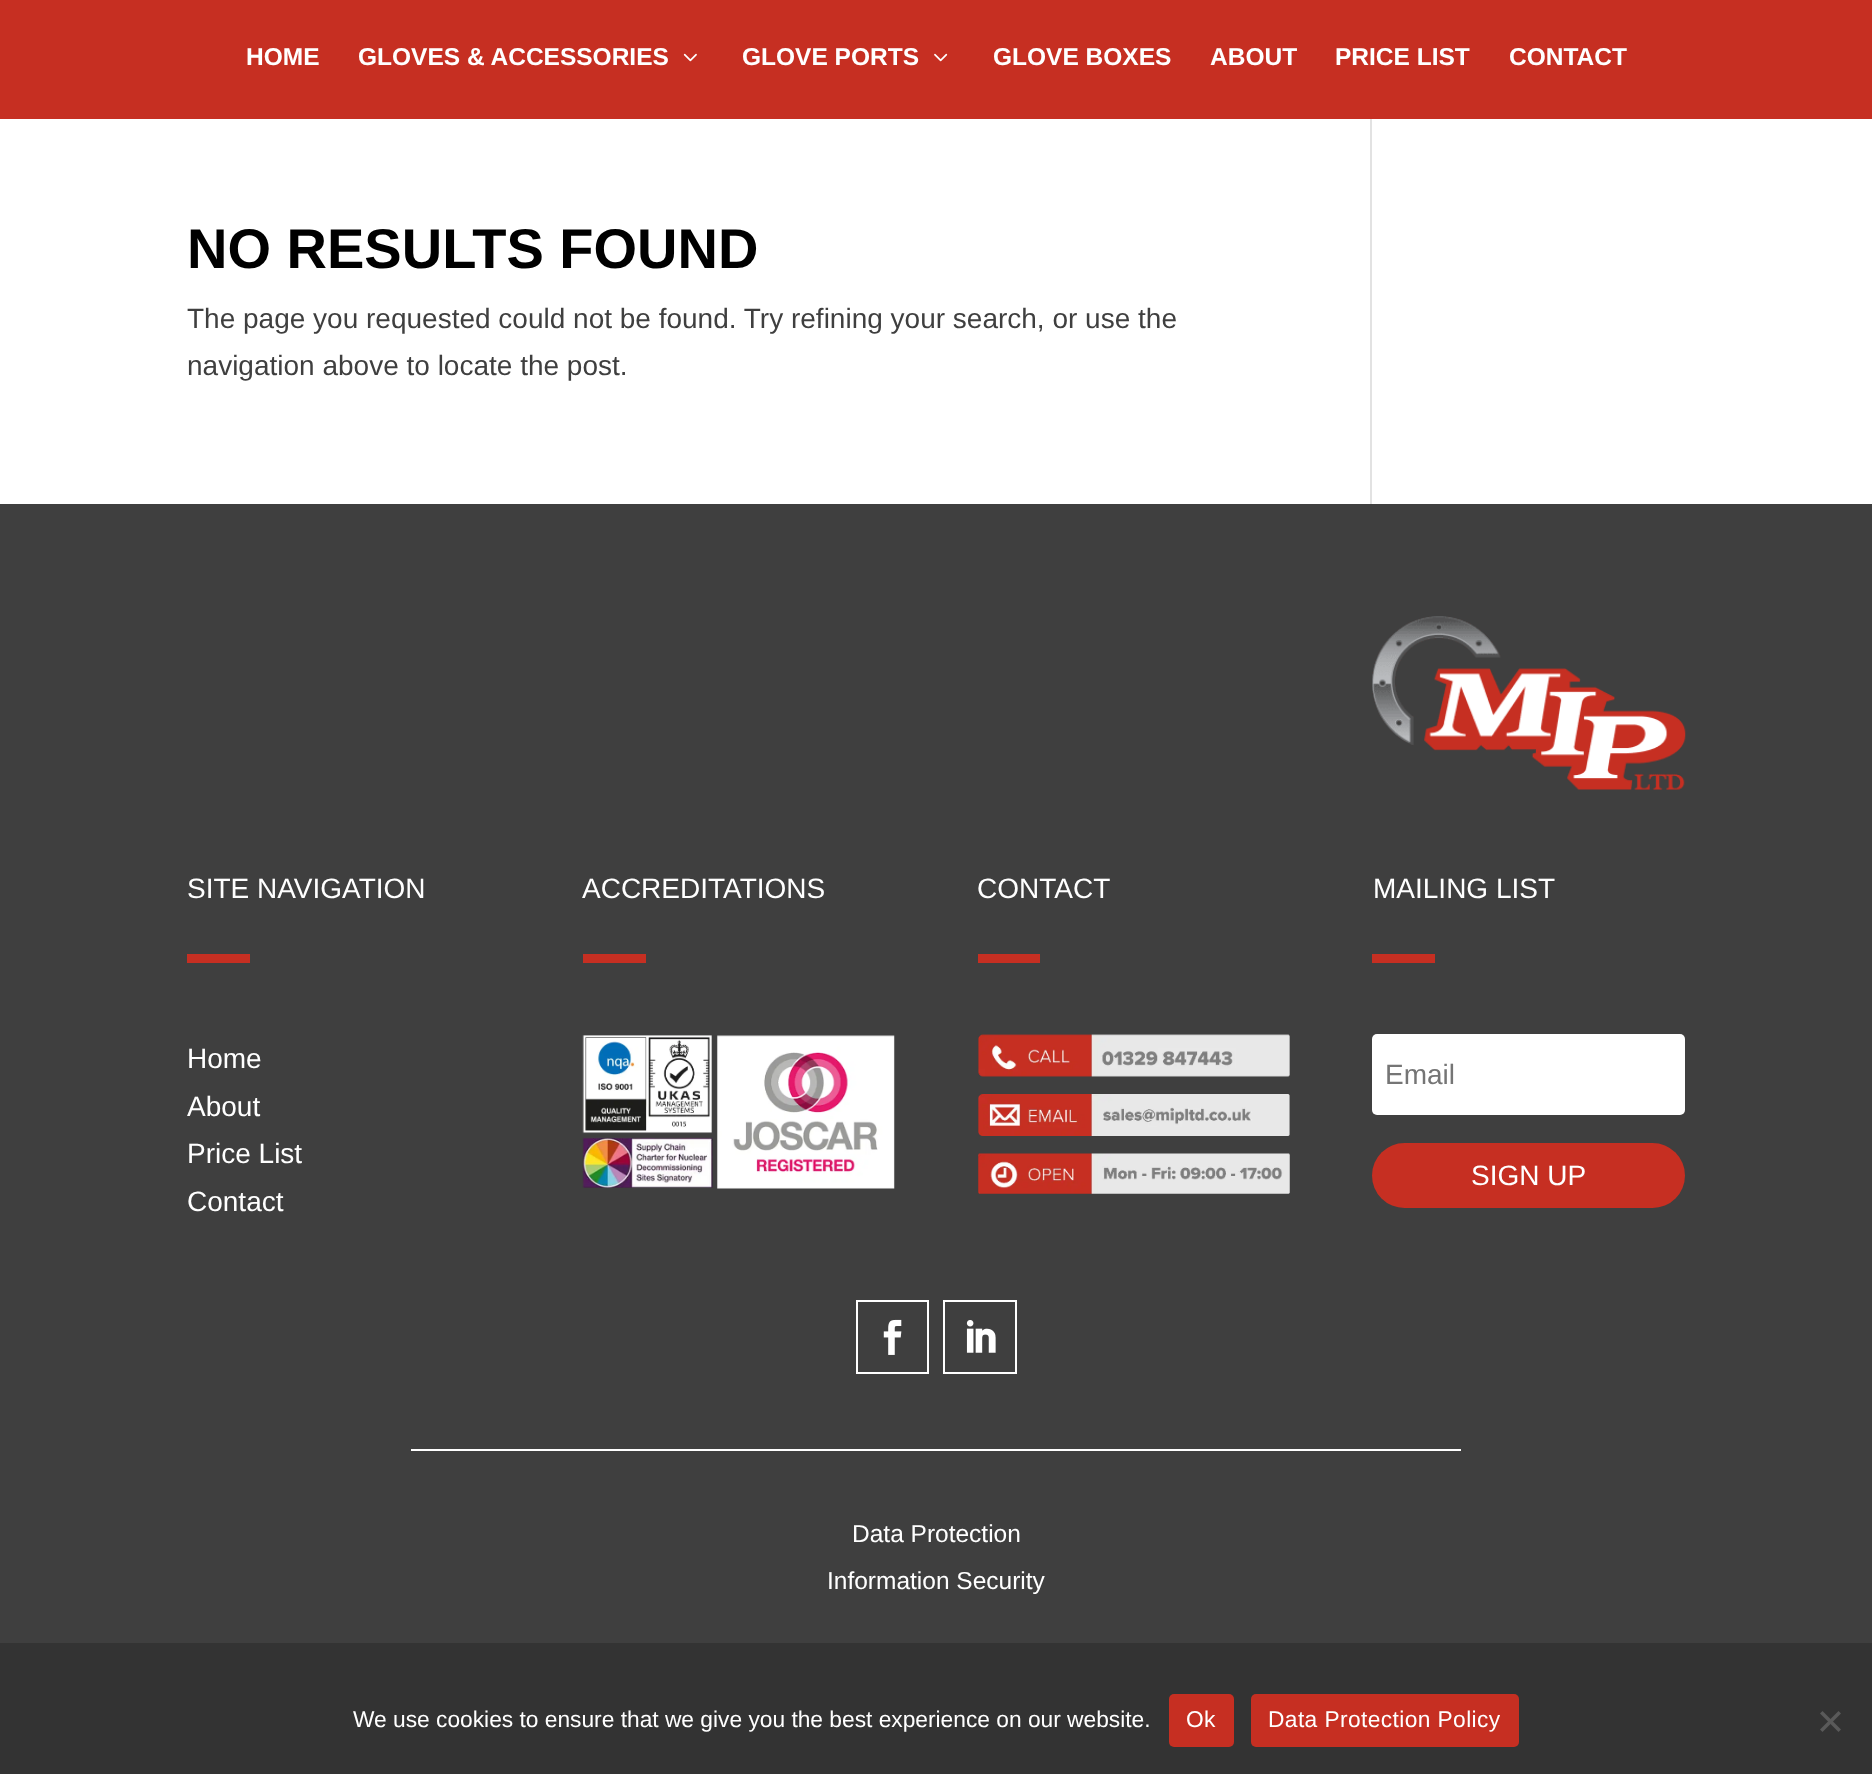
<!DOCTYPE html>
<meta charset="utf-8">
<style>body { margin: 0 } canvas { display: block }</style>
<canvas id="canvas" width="1872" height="1774"></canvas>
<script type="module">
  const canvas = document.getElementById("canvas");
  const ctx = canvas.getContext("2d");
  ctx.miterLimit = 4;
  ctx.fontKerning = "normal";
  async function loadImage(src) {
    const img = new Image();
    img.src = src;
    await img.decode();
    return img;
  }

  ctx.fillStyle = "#ffffff";
  ctx.fillRect(0, 0, 1872, 1774);
  ctx.fillStyle = "#c62f22";
  ctx.fillRect(0, 0, 1872, 119);
  ctx.font = "bold 24.5px Liberation Sans";
  ctx.fillStyle = "#ffffff";
  ctx.fillText("HOME", 246, 65);
  ctx.fillText("GLOVES & ACCESSORIES", 358, 65);
  ctx.drawImage(await loadImage("img1.png"), 683, 53, 14, 9);
  ctx.fillText("GLOVE PORTS", 742, 65);
  ctx.drawImage(await loadImage("img2.png"), 934, 53, 14, 9);
  ctx.fillText("GLOVE BOXES", 993, 65);
  ctx.fillText("ABOUT", 1210, 65);
  ctx.fillText("PRICE LIST", 1335, 65);
  ctx.fillText("CONTACT", 1509, 65);
  ctx.font = "bold 56px Liberation Sans";
  ctx.fillStyle = "#000000";
  ctx.fillText("NO RESULTS FOUND", 187, 268);
  ctx.font = "28px Liberation Sans";
  ctx.fillStyle = "#3f3f3f";
  ctx.fillText("The page you requested could not be found. Try refining your search, or use the", 187, 328);
  ctx.fillText("navigation above to locate the post.", 187, 375);
  ctx.fillStyle = "#e2e2e2";
  ctx.fillRect(1370, 119, 2, 385);
  ctx.fillStyle = "#3f3f3f";
  ctx.fillRect(0, 504, 1872, 1139);
  ctx.drawImage(await loadImage("img3.png"), 1372, 616, 314, 174);
  ctx.fillStyle = "#ffffff";
  ctx.fillText("SITE NAVIGATION", 187, 898);
  ctx.fillStyle = "#c62f22";
  ctx.fillRect(187, 954, 63, 9);
  ctx.fillStyle = "#ffffff";
  ctx.fillText("Home", 187, 1068);
  ctx.fillText("About", 187, 1116);
  ctx.fillText("Price List", 187, 1163);
  ctx.fillText("Contact", 187, 1211);
  ctx.fillText("ACCREDITATIONS", 582, 898);
  ctx.fillStyle = "#c62f22";
  ctx.fillRect(583, 954, 63, 9);
  ctx.drawImage(await loadImage("img4.png"), 582, 1035, 313, 154);
  ctx.fillStyle = "#ffffff";
  ctx.fillText("CONTACT", 977, 898);
  ctx.fillStyle = "#c62f22";
  ctx.fillRect(978, 954, 62, 9);
  ctx.drawImage(await loadImage("img5.png"), 978, 1034, 312, 43);
  ctx.drawImage(await loadImage("img6.png"), 978, 1094, 312, 42);
  ctx.drawImage(await loadImage("img7.png"), 978, 1153, 312, 41);
  ctx.fillStyle = "#ffffff";
  ctx.fillText("MAILING LIST", 1373, 898);
  ctx.fillStyle = "#c62f22";
  ctx.fillRect(1372, 954, 63, 9);
  ctx.fillStyle = "#ffffff";
  ctx.beginPath();
  ctx.roundRect(1372, 1034, 313, 81, 5);
  ctx.fill();
  ctx.fillStyle = "#757575";
  ctx.fillText("Email", 1385, 1084);
  ctx.fillStyle = "#c62f22";
  ctx.beginPath();
  ctx.roundRect(1372, 1143, 313, 65, 32.5);
  ctx.fill();
  ctx.fillStyle = "#ffffff";
  ctx.fillText("SIGN UP", 1471, 1185);
  ctx.strokeStyle = "#ffffff";
  ctx.lineWidth = 2;
  ctx.strokeRect(857, 1301, 71, 72);
  ctx.drawImage(await loadImage("img8.png"), 883, 1319, 19, 36);
  ctx.strokeRect(944, 1301, 72, 72);
  ctx.drawImage(await loadImage("img9.png"), 966, 1320, 30, 33);
  ctx.fillRect(411, 1449, 1050, 2);
  ctx.font = "24.5px Liberation Sans";
  ctx.fillText("Data Protection", 852, 1542);
  ctx.fillText("Information Security", 827, 1589);
  ctx.fillStyle = "#333333";
  ctx.fillRect(0, 1643, 1872, 131);
  ctx.font = "22.75px Liberation Sans";
  ctx.fillStyle = "#ffffff";
  ctx.fillText("We use cookies to ensure that we give you the best experience on our website.", 353, 1727);
  ctx.fillStyle = "#c62f22";
  ctx.beginPath();
  ctx.roundRect(1169, 1694, 65, 53, 5);
  ctx.fill();
  ctx.letterSpacing = "0.4px";
  ctx.fillStyle = "#ffffff";
  ctx.fillText("Ok", 1186, 1727);
  ctx.fillStyle = "#c62f22";
  ctx.beginPath();
  ctx.roundRect(1251, 1694, 268, 53, 5);
  ctx.fill();
  ctx.fillStyle = "#ffffff";
  ctx.fillText("Data Protection Policy", 1268, 1727);
  ctx.fillStyle = "#5a5a5a";
  ctx.beginPath();
  ctx.moveTo(1838.5, 1711);
  ctx.lineTo(1841, 1713.5);
  ctx.lineTo(1822.5, 1732);
  ctx.lineTo(1820, 1729.5);
  ctx.closePath();
  ctx.fill();
  ctx.beginPath();
  ctx.moveTo(1820, 1713.5);
  ctx.lineTo(1822.5, 1711);
  ctx.lineTo(1841, 1729.5);
  ctx.lineTo(1838.5, 1732);
  ctx.closePath();
  ctx.fill();
</script>
